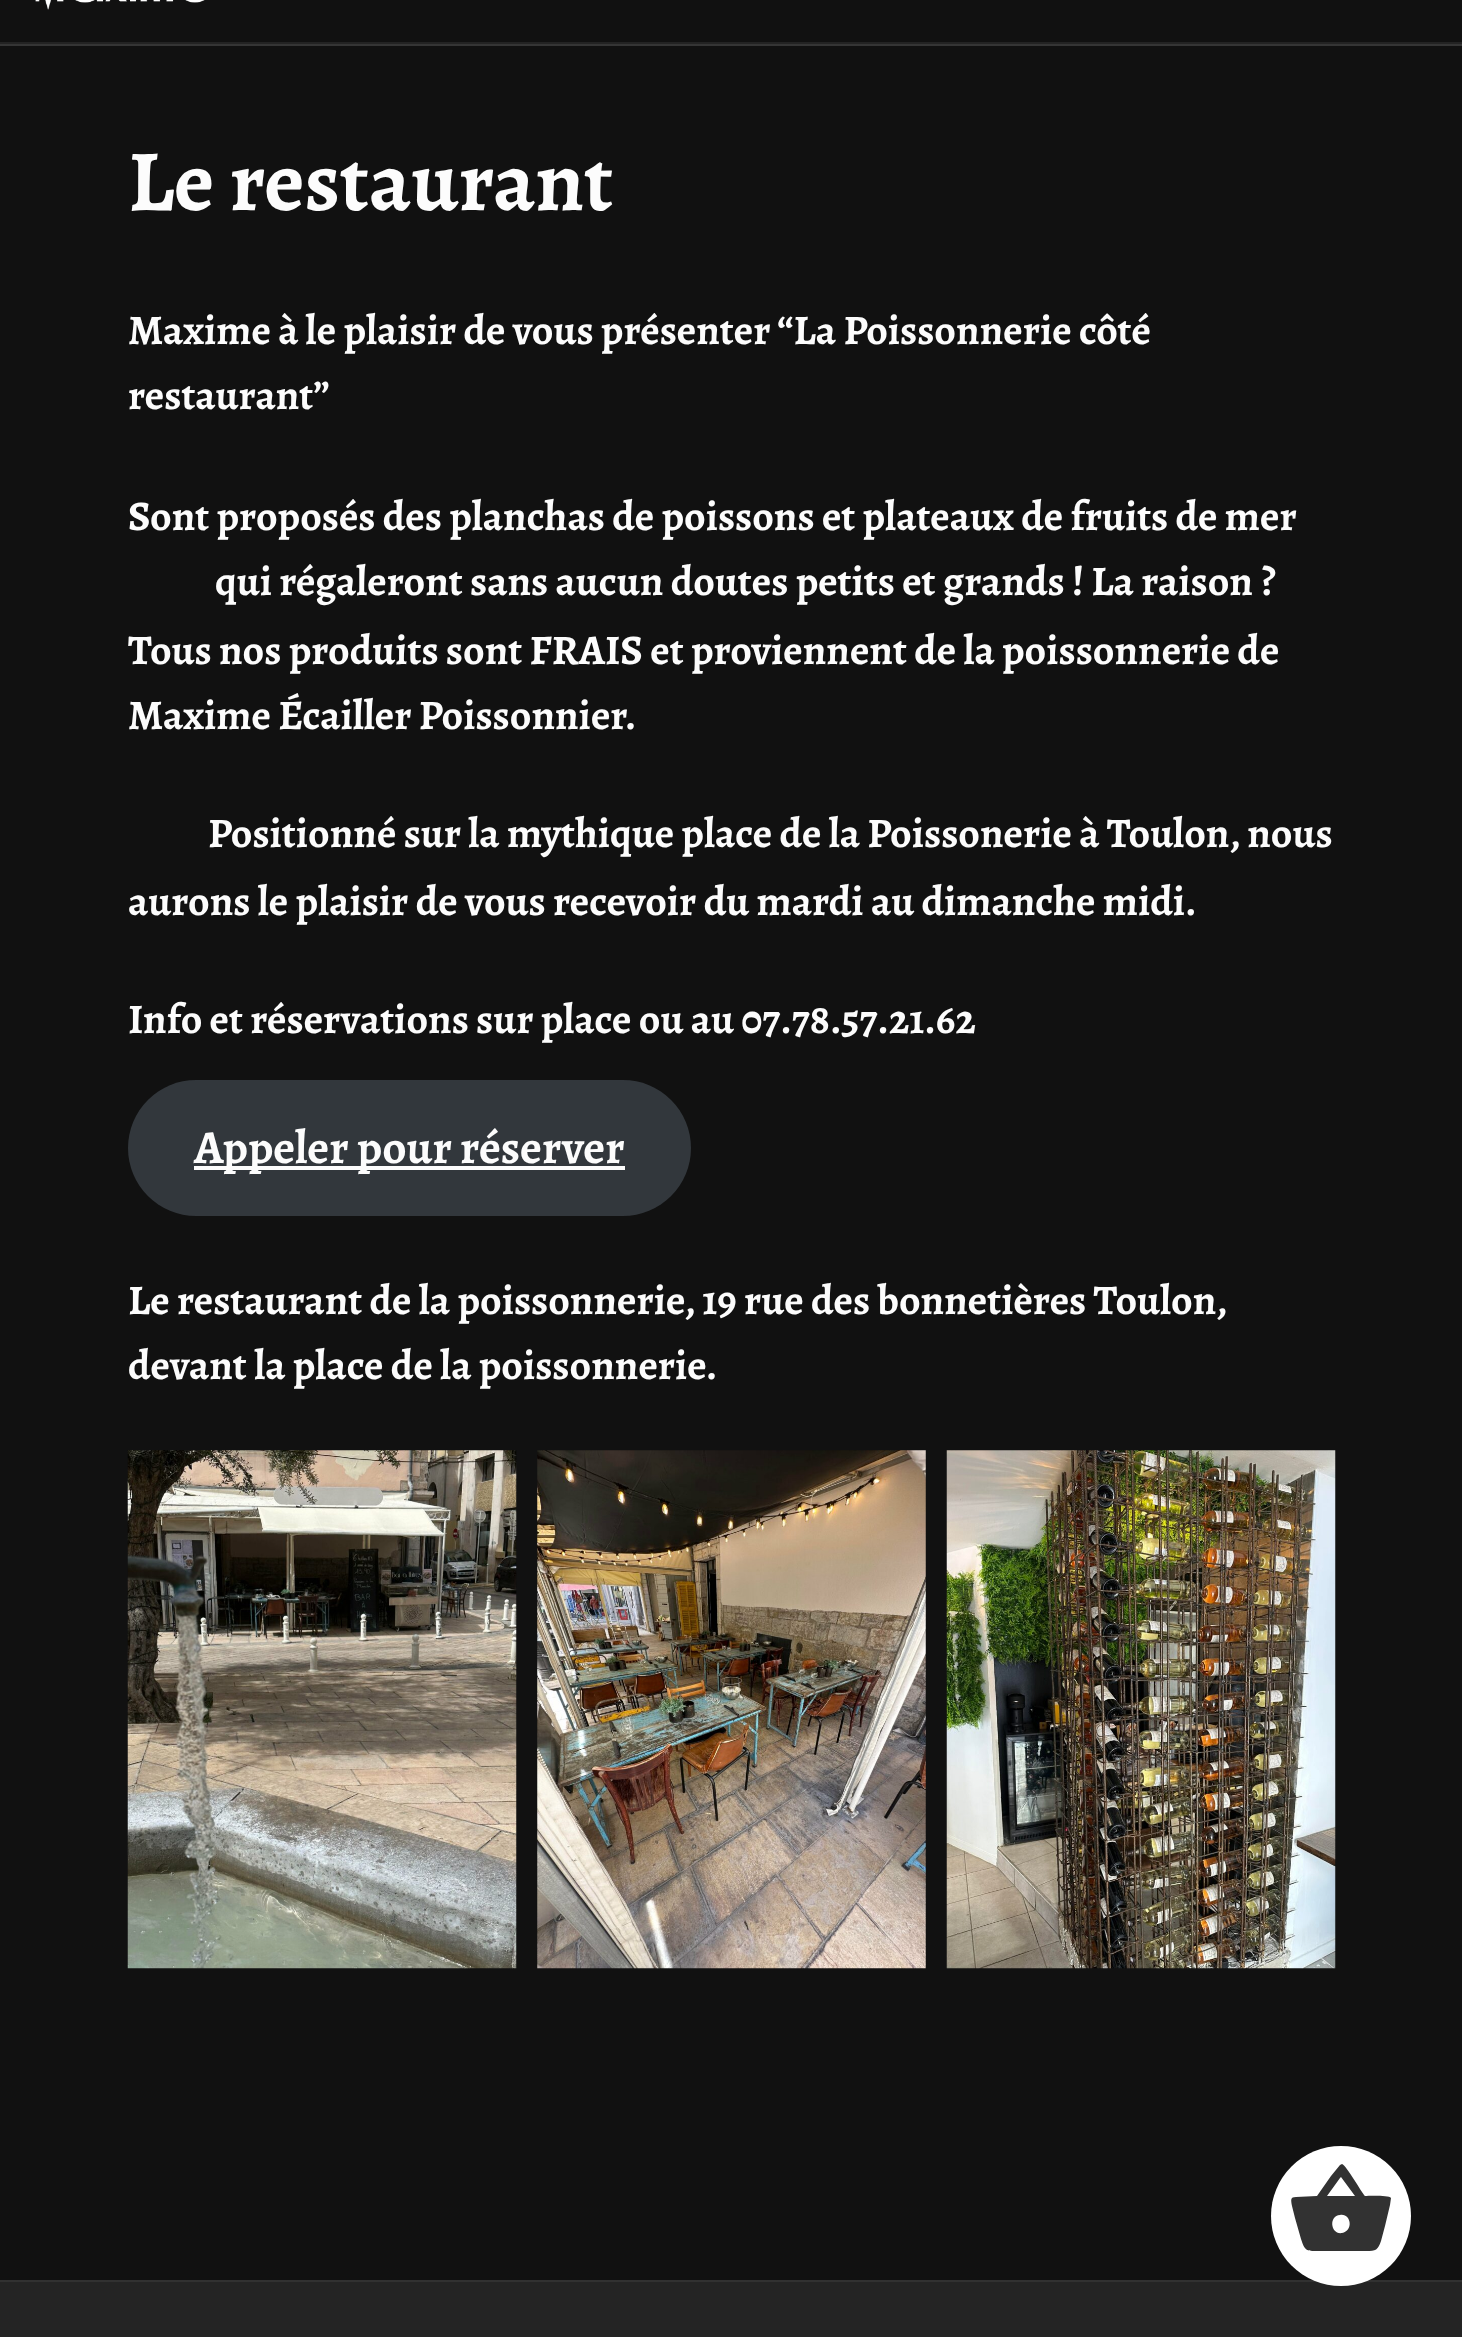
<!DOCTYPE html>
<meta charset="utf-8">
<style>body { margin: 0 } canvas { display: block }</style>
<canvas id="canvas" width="1462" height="2337"></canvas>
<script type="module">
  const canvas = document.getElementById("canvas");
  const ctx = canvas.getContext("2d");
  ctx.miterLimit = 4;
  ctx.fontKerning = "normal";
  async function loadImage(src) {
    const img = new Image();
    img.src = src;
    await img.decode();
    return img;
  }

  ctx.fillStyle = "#111111";
  ctx.fillRect(0, 0, 1462, 2337);
  ctx.fillStyle = "#353535";
  ctx.fillRect(0, 44, 1462, 2);
  ctx.drawImage(await loadImage("img1.png"), 35, 0, 170, 10);
  ctx.fillStyle = "#232323";
  ctx.fillRect(0, 42, 1462, 2);
  ctx.font = "bold 87px Alegreya";
  ctx.fillStyle = "#fcfcfc";
  ctx.fillText("Le restaurant", 128, 210);
  ctx.font = "bold 42px Alegreya";
  ctx.fillText("Maxime à le plaisir de vous présenter “La Poissonnerie côté", 128, 344);
  ctx.fillText("restaurant”", 128, 409);
  ctx.fillText("Sont proposés des planchas de poissons et plateaux de fruits de mer", 128, 530);
  ctx.fillText("qui régaleront sans aucun doutes petits et grands ! La raison ?", 215, 595);
  ctx.fillText("Tous nos produits sont FRAIS et proviennent de la poissonnerie de", 128, 664);
  ctx.fillText("Maxime Écailler Poissonnier.", 128, 729);
  ctx.fillText("Positionné sur la mythique place de la Poissonerie à Toulon, nous", 208, 847);
  ctx.fillText("aurons le plaisir de vous recevoir du mardi au dimanche midi.", 128, 915);
  ctx.fillText("Info et réservations sur place ou au 07.78.57.21.62", 128, 1033);
  ctx.fillStyle = "#32373c";
  ctx.beginPath();
  ctx.roundRect(128, 1080, 563, 136, 68);
  ctx.fill();
  ctx.fillStyle = "#fcfcfc";
  ctx.fillRect(194, 1166, 431, 4);
  ctx.font = "bold 47.25px Alegreya";
  ctx.fillText("Appeler pour réserver", 194, 1163);
  ctx.font = "bold 42px Alegreya";
  ctx.fillText("Le restaurant de la poissonnerie, 19 rue des bonnetières Toulon,", 128, 1314);
  ctx.fillText("devant la place de la poissonnerie.", 128, 1379);
  ctx.drawImage(await loadImage("img2.png"), 127, 1450, 390, 519);
  ctx.drawImage(await loadImage("img3.png"), 537, 1450, 389, 519);
  ctx.drawImage(await loadImage("img4.png"), 946, 1450, 390, 519);
  ctx.fillStyle = "#313131";
  ctx.fillRect(0, 2280, 1462, 2);
  ctx.fillStyle = "#242424";
  ctx.fillRect(0, 2282, 1462, 55);
  ctx.fillStyle = "#ffffff";
  ctx.beginPath();
  ctx.arc(1341, 2216, 70, 0, Math.PI * 2);
  ctx.fill();
  ctx.fillStyle = "#323232";
  ctx.beginPath();
  ctx.moveTo(1340, 2165);
  ctx.lineTo(1342, 2164);
  ctx.bezierCurveTo(1346, 2165, 1362, 2193, 1365, 2196);
  ctx.bezierCurveTo(1368, 2196, 1389, 2195, 1391, 2198);
  ctx.lineTo(1390, 2205);
  ctx.lineTo(1385, 2226);
  ctx.lineTo(1381, 2241);
  ctx.bezierCurveTo(1378, 2250, 1376, 2251, 1366, 2251);
  ctx.lineTo(1318, 2251);
  ctx.bezierCurveTo(1306, 2251, 1305, 2251, 1301, 2239);
  ctx.lineTo(1295, 2218);
  ctx.lineTo(1292, 2206);
  ctx.bezierCurveTo(1291, 2200, 1290, 2197, 1296, 2197);
  ctx.lineTo(1317, 2196);
  ctx.lineTo(1331, 2176);
  ctx.closePath();
  ctx.moveTo(1340, 2178);
  ctx.lineTo(1327, 2196);
  ctx.lineTo(1355, 2196);
  ctx.lineTo(1341, 2177);
  ctx.closePath();
  ctx.moveTo(1340, 2215);
  ctx.bezierCurveTo(1328, 2216, 1331, 2235, 1342, 2233);
  ctx.bezierCurveTo(1354, 2231, 1351, 2213, 1340, 2215);
  ctx.closePath();
  ctx.fill();
</script>
